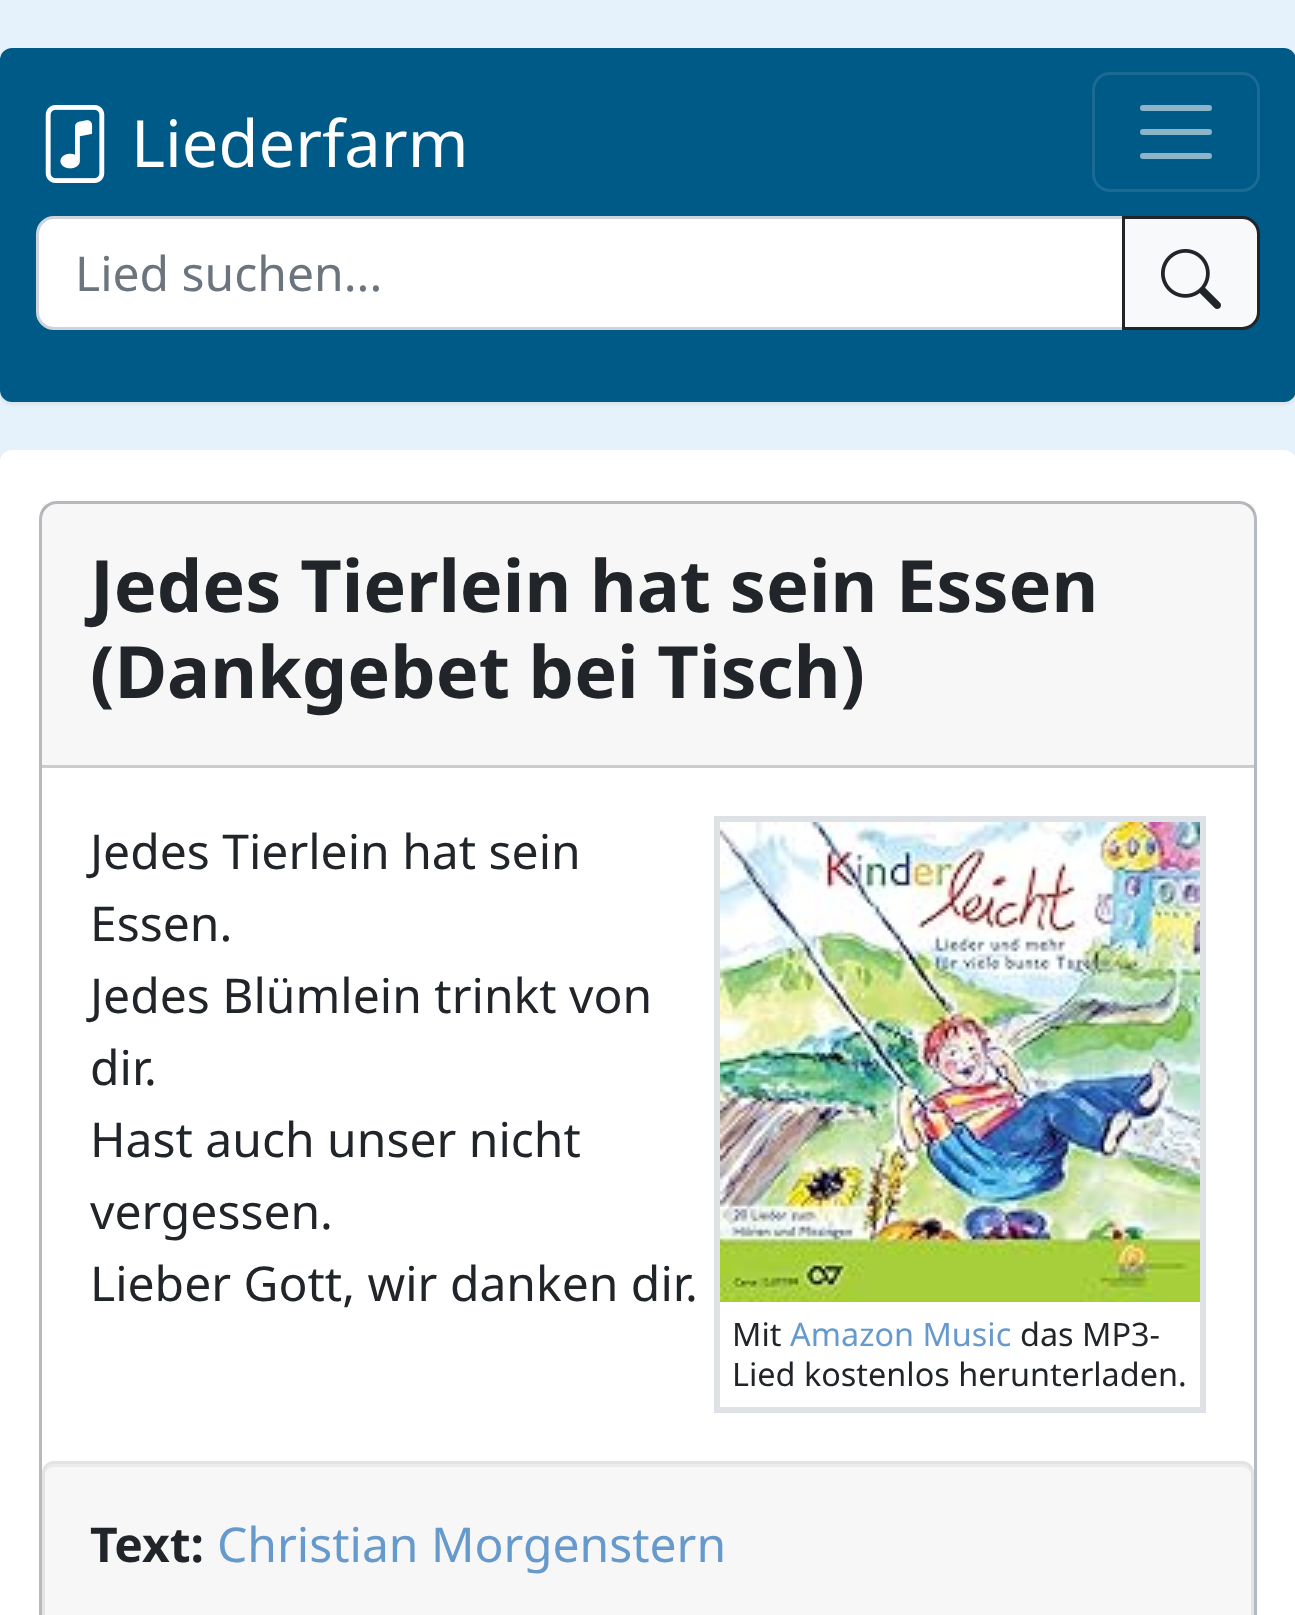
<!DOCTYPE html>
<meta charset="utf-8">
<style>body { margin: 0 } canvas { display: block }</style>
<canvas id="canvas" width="1295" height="1615"></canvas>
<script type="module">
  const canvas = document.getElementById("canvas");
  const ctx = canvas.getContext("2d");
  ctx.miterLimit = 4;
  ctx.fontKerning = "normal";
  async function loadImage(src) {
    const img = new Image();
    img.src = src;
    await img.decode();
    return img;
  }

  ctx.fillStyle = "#e5f2fb";
  ctx.fillRect(0, 0, 1295, 1615);
  ctx.fillStyle = "rgba(0, 0, 0, 0.05)";
  ctx.filter = "blur(1.5px)";
  ctx.beginPath();
  ctx.roundRect(0, 51, 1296, 354, 12);
  ctx.fill();
  ctx.filter = "none";
  ctx.fillStyle = "#005a88";
  ctx.beginPath();
  ctx.roundRect(0, 48, 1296, 354, 12);
  ctx.fill();
  ctx.drawImage(await loadImage("img1.png"), 45, 105, 60, 78);
  ctx.font = "65px Noto Sans";
  ctx.fillStyle = "#ffffff";
  ctx.fillText("Liederfarm", 131, 167);
  ctx.beginPath();
  ctx.roundRect(1093.5, 73.5, 165, 117, 16.5);
  ctx.strokeStyle = "#1a6b94";
  ctx.lineWidth = 3;
  ctx.stroke();
  ctx.beginPath();
  ctx.moveTo(1143, 108);
  ctx.lineTo(1209, 108);
  ctx.moveTo(1143, 132);
  ctx.lineTo(1209, 132);
  ctx.moveTo(1143, 156);
  ctx.lineTo(1209, 156);
  ctx.strokeStyle = "#8cb5c9";
  ctx.lineWidth = 6;
  ctx.lineCap = "round";
  ctx.stroke();
  ctx.beginPath();
  ctx.roundRect(37.5, 217.5, 1086, 111, [16.5, 0, 0, 16.5]);
  ctx.fill();
  ctx.strokeStyle = "#ced4da";
  ctx.lineWidth = 3;
  ctx.stroke();
  ctx.font = "48px Noto Sans";
  ctx.fillStyle = "#6c757d";
  ctx.fillText("Lied suchen...", 75, 291);
  ctx.fillStyle = "#f8f9fa";
  ctx.beginPath();
  ctx.roundRect(1123.5, 217.5, 135, 111, [0, 16.5, 16.5, 0]);
  ctx.fill();
  ctx.strokeStyle = "#212529";
  ctx.stroke();
  ctx.drawImage(await loadImage("img2.png"), 1161, 249, 60, 60);
  ctx.fillStyle = "#ffffff";
  ctx.beginPath();
  ctx.roundRect(0, 450, 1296, 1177, 12);
  ctx.fill();
  ctx.beginPath();
  ctx.roundRect(40.5, 502.5, 1215, 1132, 16.5);
  ctx.strokeStyle = "#b6babe";
  ctx.stroke();
  ctx.fillStyle = "rgba(0, 0, 0, 0.03)";
  ctx.fillRect(42, 504, 1212, 261);
  ctx.fillStyle = "#cccccc";
  ctx.fillRect(42, 765, 1212, 3);
  ctx.font = "bold 72px Noto Sans";
  ctx.fillStyle = "#212529";
  ctx.fillText("Jedes Tierlein hat sein Essen", 90, 612);
  ctx.fillText("(Dankgebet bei Tisch)", 90, 698);
  ctx.font = "48px Noto Sans";
  ctx.fillText("Jedes Tierlein hat sein", 90, 869);
  ctx.fillText("Essen.", 90, 941);
  ctx.fillText("Jedes Blümlein trinkt von", 90, 1013);
  ctx.fillText("dir.", 90, 1085);
  ctx.fillText("Hast auch unser nicht", 90, 1157);
  ctx.fillText("vergessen.", 90, 1229);
  ctx.fillText("Lieber Gott, wir danken dir.", 90, 1301);
  ctx.strokeStyle = "#dee2e6";
  ctx.lineWidth = 6;
  ctx.strokeRect(717, 819, 486, 591);
  ctx.drawImage(await loadImage("img3.png"), 720, 822, 480, 480);
  ctx.font = "32.4px Noto Sans";
  ctx.fillText("Mit", 732, 1346);
  ctx.fillStyle = "#6699cc";
  ctx.fillText("Amazon Music", 790, 1346);
  ctx.fillStyle = "#212529";
  ctx.fillText("das MP3-", 1020, 1346);
  ctx.fillText("Lied kostenlos herunterladen.", 732, 1386);
  ctx.fillStyle = "#f7f7f7";
  ctx.beginPath();
  ctx.roundRect(42, 1461, 1212, 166, 12);
  ctx.fill();
  ctx.fillStyle = "#ebebeb";
  ctx.beginPath();
  ctx.moveTo(54, 1467);
  ctx.lineTo(1242, 1467);
  ctx.bezierCurveTo(1247, 1467, 1251, 1471, 1251, 1476);
  ctx.lineTo(1251, 1473);
  ctx.bezierCurveTo(1251, 1468, 1247, 1464, 1242, 1464);
  ctx.lineTo(54, 1464);
  ctx.bezierCurveTo(49, 1464, 45, 1468, 45, 1473);
  ctx.lineTo(45, 1476);
  ctx.bezierCurveTo(45, 1471, 49, 1467, 54, 1467);
  ctx.closePath();
  ctx.fill();
  ctx.beginPath();
  ctx.roundRect(43.5, 1462.5, 1209, 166, 10.5);
  ctx.strokeStyle = "#e3e3e3";
  ctx.lineWidth = 3;
  ctx.stroke();
  ctx.font = "bold 48px Noto Sans";
  ctx.fillStyle = "#212529";
  ctx.fillText("Text:", 90, 1562);
  ctx.font = "48px Noto Sans";
  ctx.fillStyle = "#6699cc";
  ctx.fillText("Christian Morgenstern", 217, 1562);
</script>
